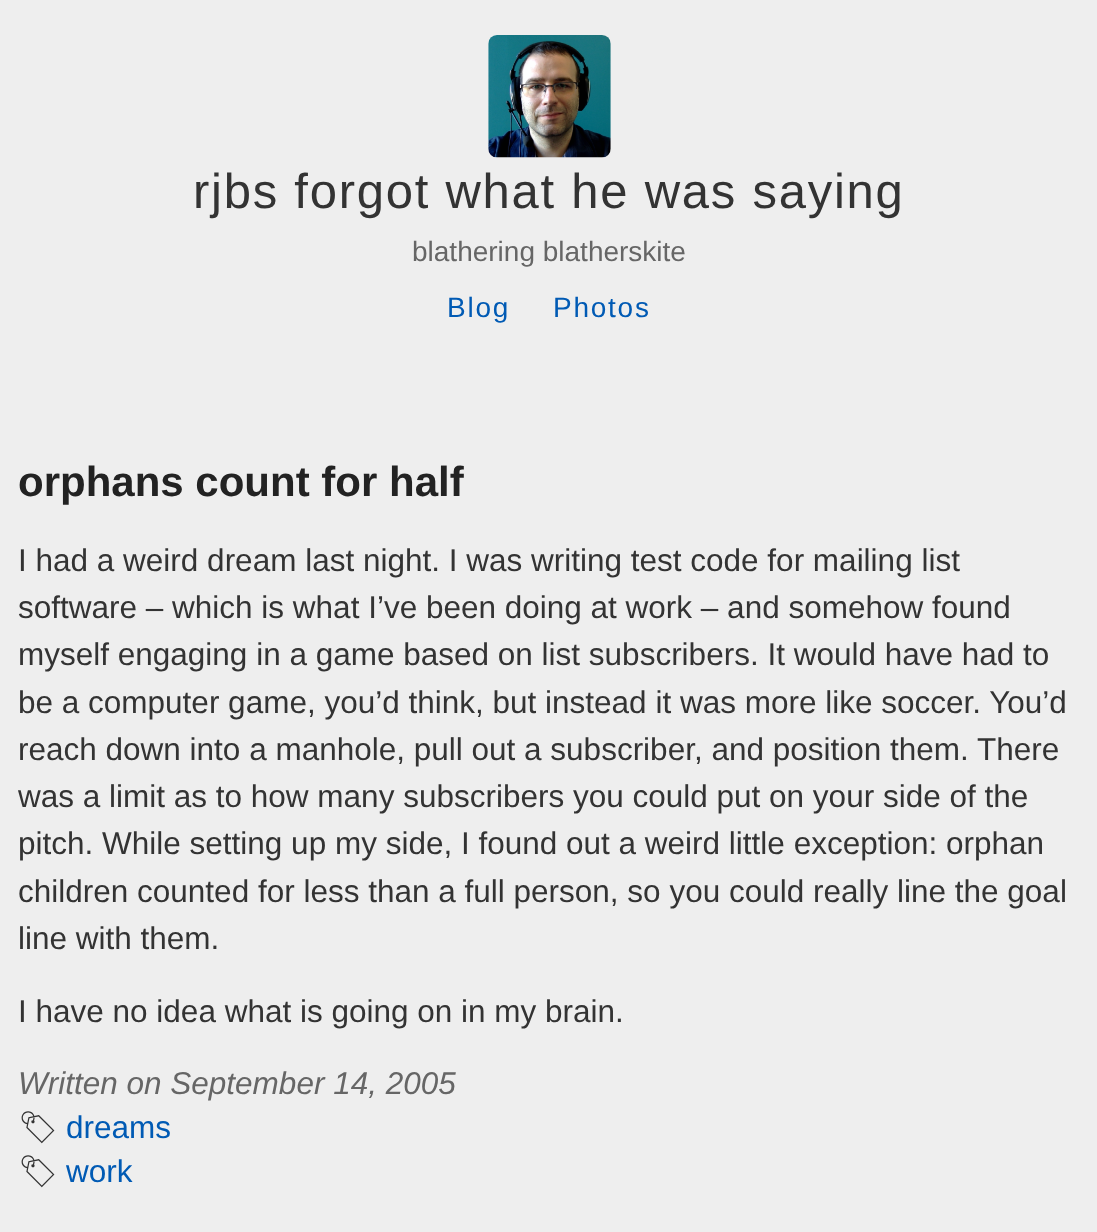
<!DOCTYPE html>
<meta charset="utf-8">
<style>body { margin: 0 } canvas { display: block }</style>
<canvas id="canvas" width="1097" height="1232"></canvas>
<script type="module">
  const canvas = document.getElementById("canvas");
  const ctx = canvas.getContext("2d");
  ctx.miterLimit = 4;
  ctx.fontKerning = "normal";
  async function loadImage(src) {
    const img = new Image();
    img.src = src;
    await img.decode();
    return img;
  }

  ctx.fillStyle = "#eeeeee";
  ctx.fillRect(0, 0, 1097, 1232);
  ctx.drawImage(await loadImage("img1.png"), 488, 35, 123, 123);
  ctx.letterSpacing = "1.75px";
  ctx.font = "49px Liberation Sans";
  ctx.fillStyle = "#333333";
  ctx.fillText("rjbs forgot what he was saying", 193, 208);
  ctx.letterSpacing = "0px";
  ctx.font = "28px Liberation Sans";
  ctx.fillStyle = "#666666";
  ctx.fillText("blathering blatherskite", 412, 261);
  ctx.letterSpacing = "1.75px";
  ctx.fillStyle = "#005ab4";
  ctx.fillText("Blog", 447, 317);
  ctx.fillText("Photos", 553, 317);
  ctx.letterSpacing = "0px";
  ctx.font = "bold 42px Liberation Sans";
  ctx.fillStyle = "#222222";
  ctx.fillText("orphans count for half", 18, 496);
  ctx.font = "31.5px Liberation Sans";
  ctx.fillStyle = "#333333";
  ctx.fillText("I had a weird dream last night. I was writing test code for mailing list", 18, 571);
  ctx.fillText("software – which is what I’ve been doing at work – and somehow found", 18, 618);
  ctx.fillText("myself engaging in a game based on list subscribers. It would have had to", 18, 665);
  ctx.fillText("be a computer game, you’d think, but instead it was more like soccer. You’d", 18, 713);
  ctx.fillText("reach down into a manhole, pull out a subscriber, and position them. There", 18, 760);
  ctx.fillText("was a limit as to how many subscribers you could put on your side of the", 18, 807);
  ctx.fillText("pitch. While setting up my side, I found out a weird little exception: orphan", 18, 854);
  ctx.fillText("children counted for less than a full person, so you could really line the goal", 18, 902);
  ctx.fillText("line with them.", 18, 949);
  ctx.fillText("I have no idea what is going on in my brain.", 18, 1022);
  ctx.font = "italic 31.5px Liberation Sans";
  ctx.fillStyle = "#666666";
  ctx.fillText("Written on September 14, 2005", 18, 1094);
  ctx.font = "31.5px Noto Emoji";
  ctx.fillStyle = "#333333";
  ctx.fillText("🏷", 18, 1138);
  ctx.font = "31.5px Liberation Sans";
  ctx.fillStyle = "#005ab4";
  ctx.fillText("dreams", 66, 1138);
  ctx.font = "31.5px Noto Emoji";
  ctx.fillStyle = "#333333";
  ctx.fillText("🏷", 18, 1182);
  ctx.font = "31.5px Liberation Sans";
  ctx.fillStyle = "#005ab4";
  ctx.fillText("work", 66, 1182);
</script>
